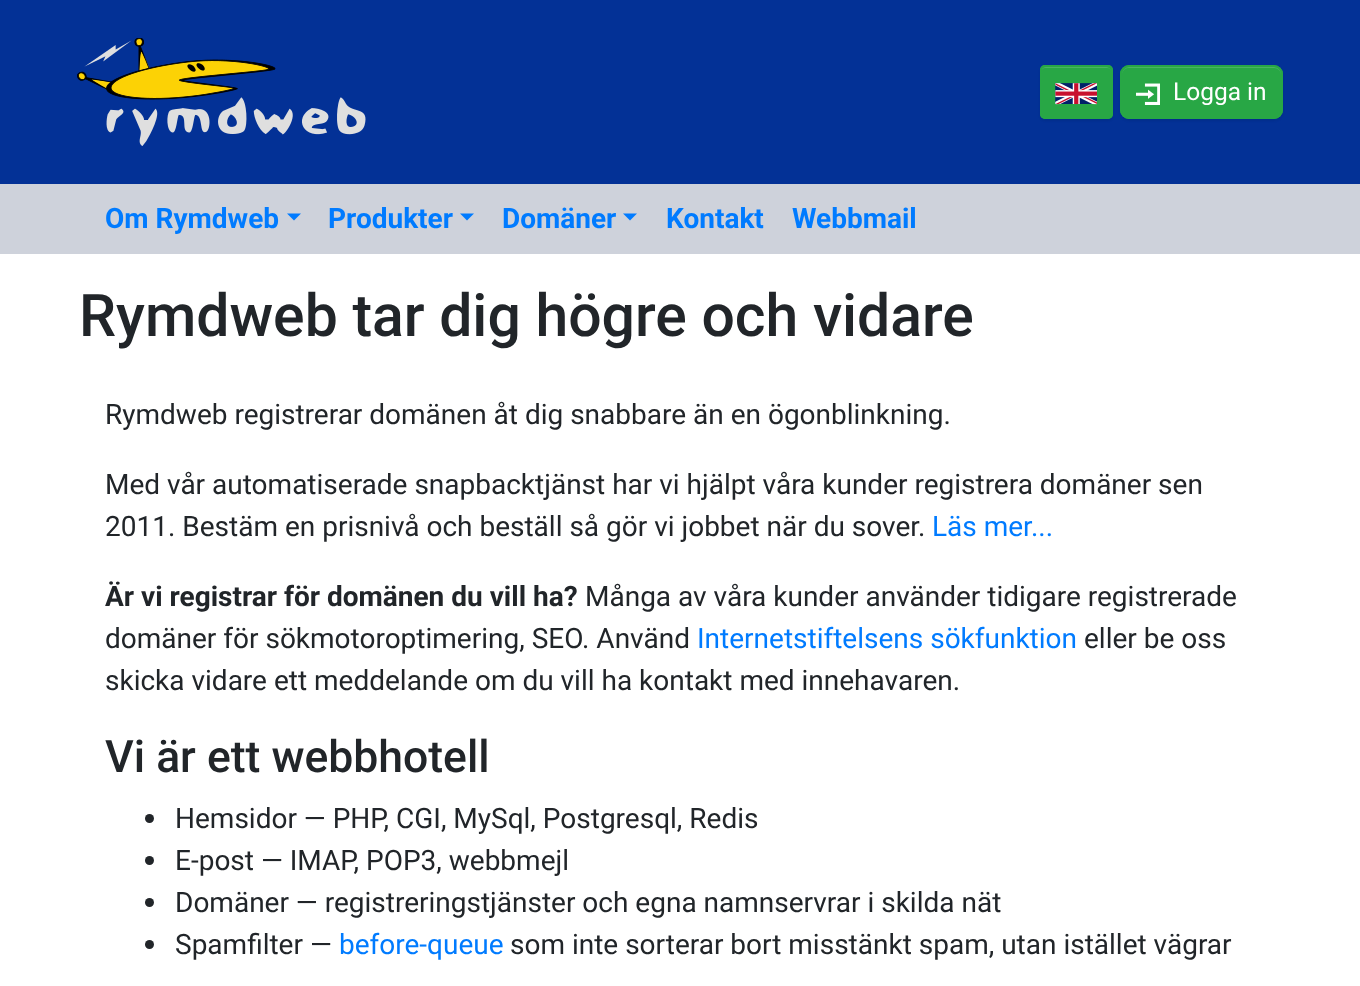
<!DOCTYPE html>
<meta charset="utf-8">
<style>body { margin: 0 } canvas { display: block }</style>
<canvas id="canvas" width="1360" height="986"></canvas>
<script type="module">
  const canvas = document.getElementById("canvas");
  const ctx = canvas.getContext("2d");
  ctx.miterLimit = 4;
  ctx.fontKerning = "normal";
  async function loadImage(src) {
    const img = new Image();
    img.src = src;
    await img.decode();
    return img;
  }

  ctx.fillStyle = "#ffffff";
  ctx.fillRect(0, 0, 1360, 986);
  ctx.fillStyle = "#033196";
  ctx.fillRect(0, 0, 1360, 184);
  ctx.drawImage(await loadImage("img1.png"), 77, 38, 289, 108);
  ctx.fillStyle = "rgba(0, 0, 0, 0.07)";
  ctx.filter = "blur(1px)";
  ctx.beginPath();
  ctx.roundRect(1040, 67, 73, 54, 5);
  ctx.fill();
  ctx.filter = "none";
  ctx.fillStyle = "#28a745";
  ctx.beginPath();
  ctx.roundRect(1040, 65, 73, 54, 5);
  ctx.fill();
  ctx.fillStyle = "#48b461";
  ctx.beginPath();
  ctx.moveTo(1045, 68);
  ctx.lineTo(1107, 68);
  ctx.bezierCurveTo(1110, 68, 1111, 70, 1111, 72);
  ctx.bezierCurveTo(1111, 65, 1102, 67, 1097, 67);
  ctx.lineTo(1055, 67);
  ctx.bezierCurveTo(1050, 67, 1041, 65, 1041, 72);
  ctx.bezierCurveTo(1041, 70, 1043, 68, 1045, 68);
  ctx.closePath();
  ctx.fill();
  ctx.beginPath();
  ctx.roundRect(1041, 66, 71, 52, 4);
  ctx.strokeStyle = "#28a745";
  ctx.lineWidth = 2;
  ctx.stroke();
  ctx.drawImage(await loadImage("img2.png"), 1055, 83, 42, 22);
  ctx.fillStyle = "rgba(0, 0, 0, 0.07)";
  ctx.filter = "blur(1px)";
  ctx.beginPath();
  ctx.roundRect(1120, 67, 163, 54, 9);
  ctx.fill();
  ctx.filter = "none";
  ctx.fillStyle = "#28a745";
  ctx.beginPath();
  ctx.roundRect(1120, 65, 163, 54, 9);
  ctx.fill();
  ctx.fillStyle = "#48b461";
  ctx.beginPath();
  ctx.moveTo(1128, 68);
  ctx.lineTo(1274, 68);
  ctx.bezierCurveTo(1278, 68, 1281, 71, 1281, 75);
  ctx.lineTo(1281, 74);
  ctx.bezierCurveTo(1281, 70, 1278, 67, 1274, 67);
  ctx.lineTo(1129, 67);
  ctx.bezierCurveTo(1125, 67, 1122, 70, 1122, 74);
  ctx.lineTo(1122, 75);
  ctx.bezierCurveTo(1122, 71, 1125, 68, 1128, 68);
  ctx.closePath();
  ctx.fill();
  ctx.beginPath();
  ctx.roundRect(1121, 66, 161, 52, 8);
  ctx.stroke();
  ctx.drawImage(await loadImage("img3.png"), 1136, 83, 24, 22);
  ctx.font = "24.5px Roboto";
  ctx.fillStyle = "#ffffff";
  ctx.fillText("Logga in", 1173, 100);
  ctx.fillStyle = "#ced2db";
  ctx.fillRect(0, 184, 1360, 70);
  ctx.font = "bold 28px Roboto";
  ctx.fillStyle = "#007bff";
  ctx.fillText("Om Rymdweb", 105, 228);
  ctx.beginPath();
  ctx.moveTo(287, 213.5);
  ctx.lineTo(301, 213.5);
  ctx.lineTo(294, 220.5);
  ctx.closePath();
  ctx.fill();
  ctx.fillText("Produkter", 328, 228);
  ctx.beginPath();
  ctx.moveTo(460, 213.5);
  ctx.lineTo(474, 213.5);
  ctx.lineTo(467, 220.5);
  ctx.closePath();
  ctx.fill();
  ctx.fillText("Domäner", 502, 228);
  ctx.beginPath();
  ctx.moveTo(623, 213.5);
  ctx.lineTo(637, 213.5);
  ctx.lineTo(630, 220.5);
  ctx.closePath();
  ctx.fill();
  ctx.fillText("Kontakt", 666, 228);
  ctx.fillText("Webbmail", 792, 228);
  ctx.font = "500 58.9px Roboto";
  ctx.fillStyle = "#212529";
  ctx.fillText("Rymdweb tar dig högre och vidare", 79, 336);
  ctx.font = "28px Roboto";
  ctx.fillText("Rymdweb registrerar domänen åt dig snabbare än en ögonblinkning.", 105, 424);
  ctx.fillText("Med vår automatiserade snapbacktjänst har vi hjälpt våra kunder registrera domäner sen", 105, 494);
  ctx.fillText("2011. Bestäm en prisnivå och beställ så gör vi jobbet när du sover.", 105, 536);
  ctx.fillStyle = "#007bff";
  ctx.fillText("Läs mer...", 932, 536);
  ctx.font = "bold 28px Roboto";
  ctx.fillStyle = "#212529";
  ctx.fillText("Är vi registrar för domänen du vill ha?", 105, 606);
  ctx.font = "28px Roboto";
  ctx.fillText("Många av våra kunder använder tidigare registrerade", 585, 606);
  ctx.fillText("domäner för sökmotoroptimering, SEO. Använd", 105, 648);
  ctx.fillStyle = "#007bff";
  ctx.fillText("Internetstiftelsens sökfunktion", 697, 648);
  ctx.fillStyle = "#212529";
  ctx.fillText("eller be oss", 1084, 648);
  ctx.fillText("skicka vidare ett meddelande om du vill ha kontakt med innehavaren.", 105, 690);
  ctx.font = "500 44.5px Roboto";
  ctx.fillText("Vi är ett webbhotell", 105, 772);
  ctx.beginPath();
  ctx.arc(149.5, 818.5, 4.5, 0, Math.PI * 2);
  ctx.fill();
  ctx.font = "28px Roboto";
  ctx.fillText("Hemsidor — PHP, CGI, MySql, Postgresql, Redis", 175, 828);
  ctx.beginPath();
  ctx.arc(149.5, 860.5, 4.5, 0, Math.PI * 2);
  ctx.fill();
  ctx.fillText("E-post — IMAP, POP3, webbmejl", 175, 870);
  ctx.beginPath();
  ctx.arc(149.5, 902.5, 4.5, 0, Math.PI * 2);
  ctx.fill();
  ctx.fillText("Domäner — registreringstjänster och egna namnservrar i skilda nät", 175, 912);
  ctx.beginPath();
  ctx.arc(149.5, 944.5, 4.5, 0, Math.PI * 2);
  ctx.fill();
  ctx.fillText("Spamfilter —", 175, 954);
  ctx.fillStyle = "#007bff";
  ctx.fillText("before-queue", 339, 954);
  ctx.fillStyle = "#212529";
  ctx.fillText("som inte sorterar bort misstänkt spam, utan istället vägrar", 510, 954);
</script>
